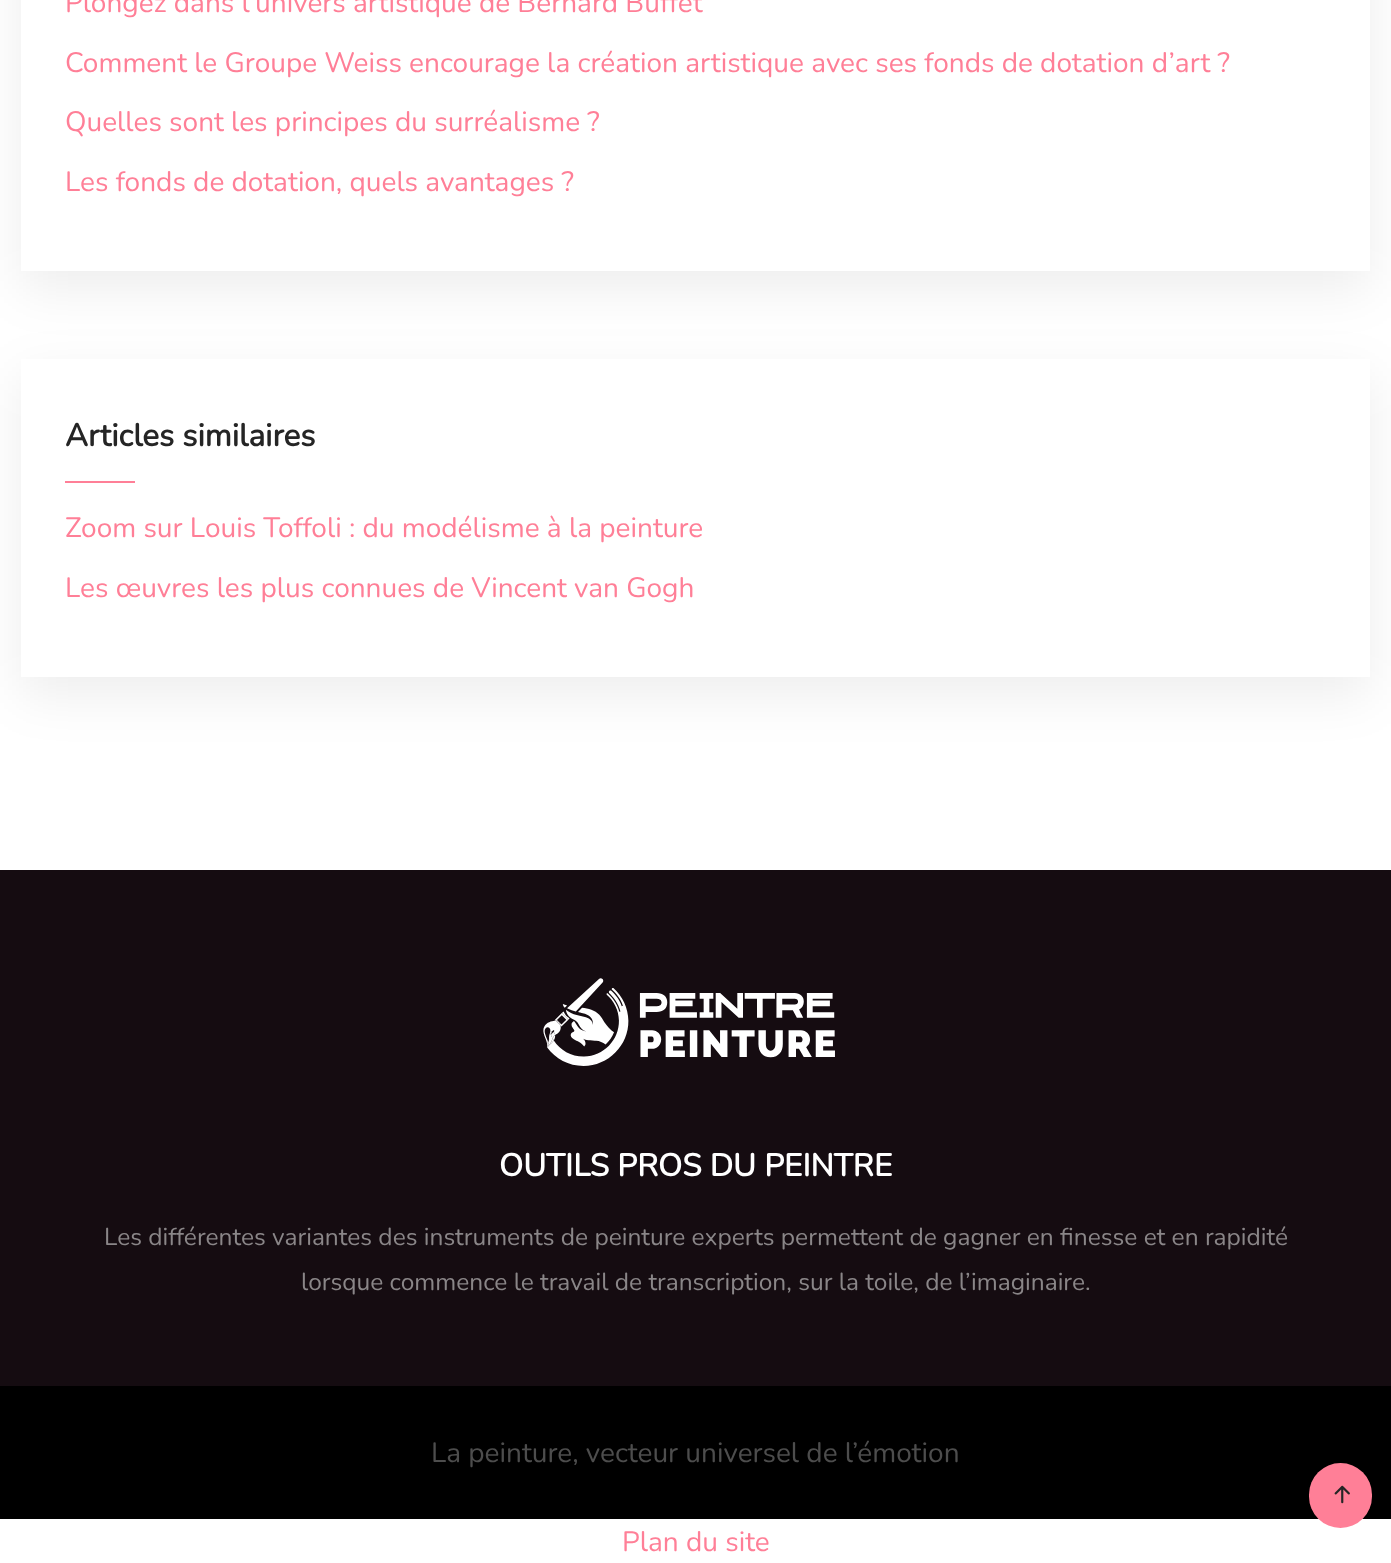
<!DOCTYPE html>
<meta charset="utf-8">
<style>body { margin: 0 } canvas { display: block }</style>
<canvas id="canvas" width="1391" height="1563"></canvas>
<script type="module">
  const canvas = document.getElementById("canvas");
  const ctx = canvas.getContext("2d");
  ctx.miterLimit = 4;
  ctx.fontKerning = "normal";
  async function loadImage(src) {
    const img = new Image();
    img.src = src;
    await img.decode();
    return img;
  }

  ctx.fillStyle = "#ffffff";
  ctx.fillRect(0, 0, 1391, 1563);
  ctx.save();
  ctx.beginPath();
  ctx.moveTo(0, 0);
  ctx.lineTo(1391, 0);
  ctx.lineTo(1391, 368);
  ctx.lineTo(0, 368);
  ctx.closePath();
  ctx.moveTo(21, -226);
  ctx.lineTo(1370, -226);
  ctx.lineTo(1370, 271);
  ctx.lineTo(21, 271);
  ctx.closePath();
  ctx.clip("evenodd");
  ctx.fillStyle = "rgba(0, 0, 0, 0.07)";
  ctx.filter = "blur(26px)";
  ctx.beginPath();
  ctx.rect(21, -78, 1349, 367);
  ctx.fill();
  ctx.filter = "none";
  ctx.restore();
  ctx.font = "200 28px Nunito";
  ctx.fillStyle = "#ff7f97";
  ctx.fillText("Plongez dans l’univers artistique de Bernard Buffet", 65, 12);
  ctx.fillText("Comment le Groupe Weiss encourage la création artistique avec ses fonds de dotation d’art ?", 65, 72);
  ctx.fillText("Quelles sont les principes du surréalisme ?", 65, 131);
  ctx.fillText("Les fonds de dotation, quels avantages ?", 65, 191);
  ctx.save();
  ctx.beginPath();
  ctx.moveTo(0, 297);
  ctx.lineTo(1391, 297);
  ctx.lineTo(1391, 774);
  ctx.lineTo(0, 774);
  ctx.closePath();
  ctx.moveTo(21, 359);
  ctx.lineTo(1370, 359);
  ctx.lineTo(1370, 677);
  ctx.lineTo(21, 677);
  ctx.closePath();
  ctx.clip("evenodd");
  ctx.fillStyle = "rgba(0, 0, 0, 0.07)";
  ctx.filter = "blur(26px)";
  ctx.beginPath();
  ctx.rect(21, 376, 1349, 319);
  ctx.fill();
  ctx.filter = "none";
  ctx.restore();
  ctx.font = "bold 31.5px Nunito";
  ctx.fillStyle = "#252525";
  ctx.fillText("Articles similaires", 65, 446);
  ctx.fillStyle = "#ff7f97";
  ctx.fillRect(65, 481, 70, 2);
  ctx.font = "200 28px Nunito";
  ctx.fillText("Zoom sur Louis Toffoli : du modélisme à la peinture", 65, 537);
  ctx.fillText("Les œuvres les plus connues de Vincent van Gogh", 65, 597);
  ctx.fillStyle = "#150c11";
  ctx.fillRect(0, 870, 1391, 516);
  ctx.drawImage(await loadImage("img1.png"), 543, 978, 292, 88);
  ctx.font = "bold 31.5px Nunito";
  ctx.fillStyle = "#ffffff";
  ctx.fillText("OUTILS PROS DU PEINTRE", 499, 1176);
  ctx.font = "200 24.5px Nunito";
  ctx.fillStyle = "#8a8688";
  ctx.fillText("Les différentes variantes des instruments de peinture experts permettent de gagner en finesse et en rapidité", 104, 1245);
  ctx.fillText("lorsque commence le travail de transcription, sur la toile, de l’imaginaire.", 301, 1290);
  ctx.fillStyle = "#000000";
  ctx.fillRect(0, 1386, 1391, 133);
  ctx.font = "200 28px Nunito";
  ctx.fillStyle = "#4d4d4d";
  ctx.fillText("La peinture, vecteur universel de l’émotion", 431, 1462);
  ctx.fillStyle = "#ff7f97";
  ctx.beginPath();
  ctx.roundRect(1309, 1463, 63, 65, 31.5);
  ctx.fill();
  ctx.drawImage(await loadImage("img2.png"), 1334, 1485, 16, 19);
  ctx.fillText("Plan du site", 622, 1551);
</script>
